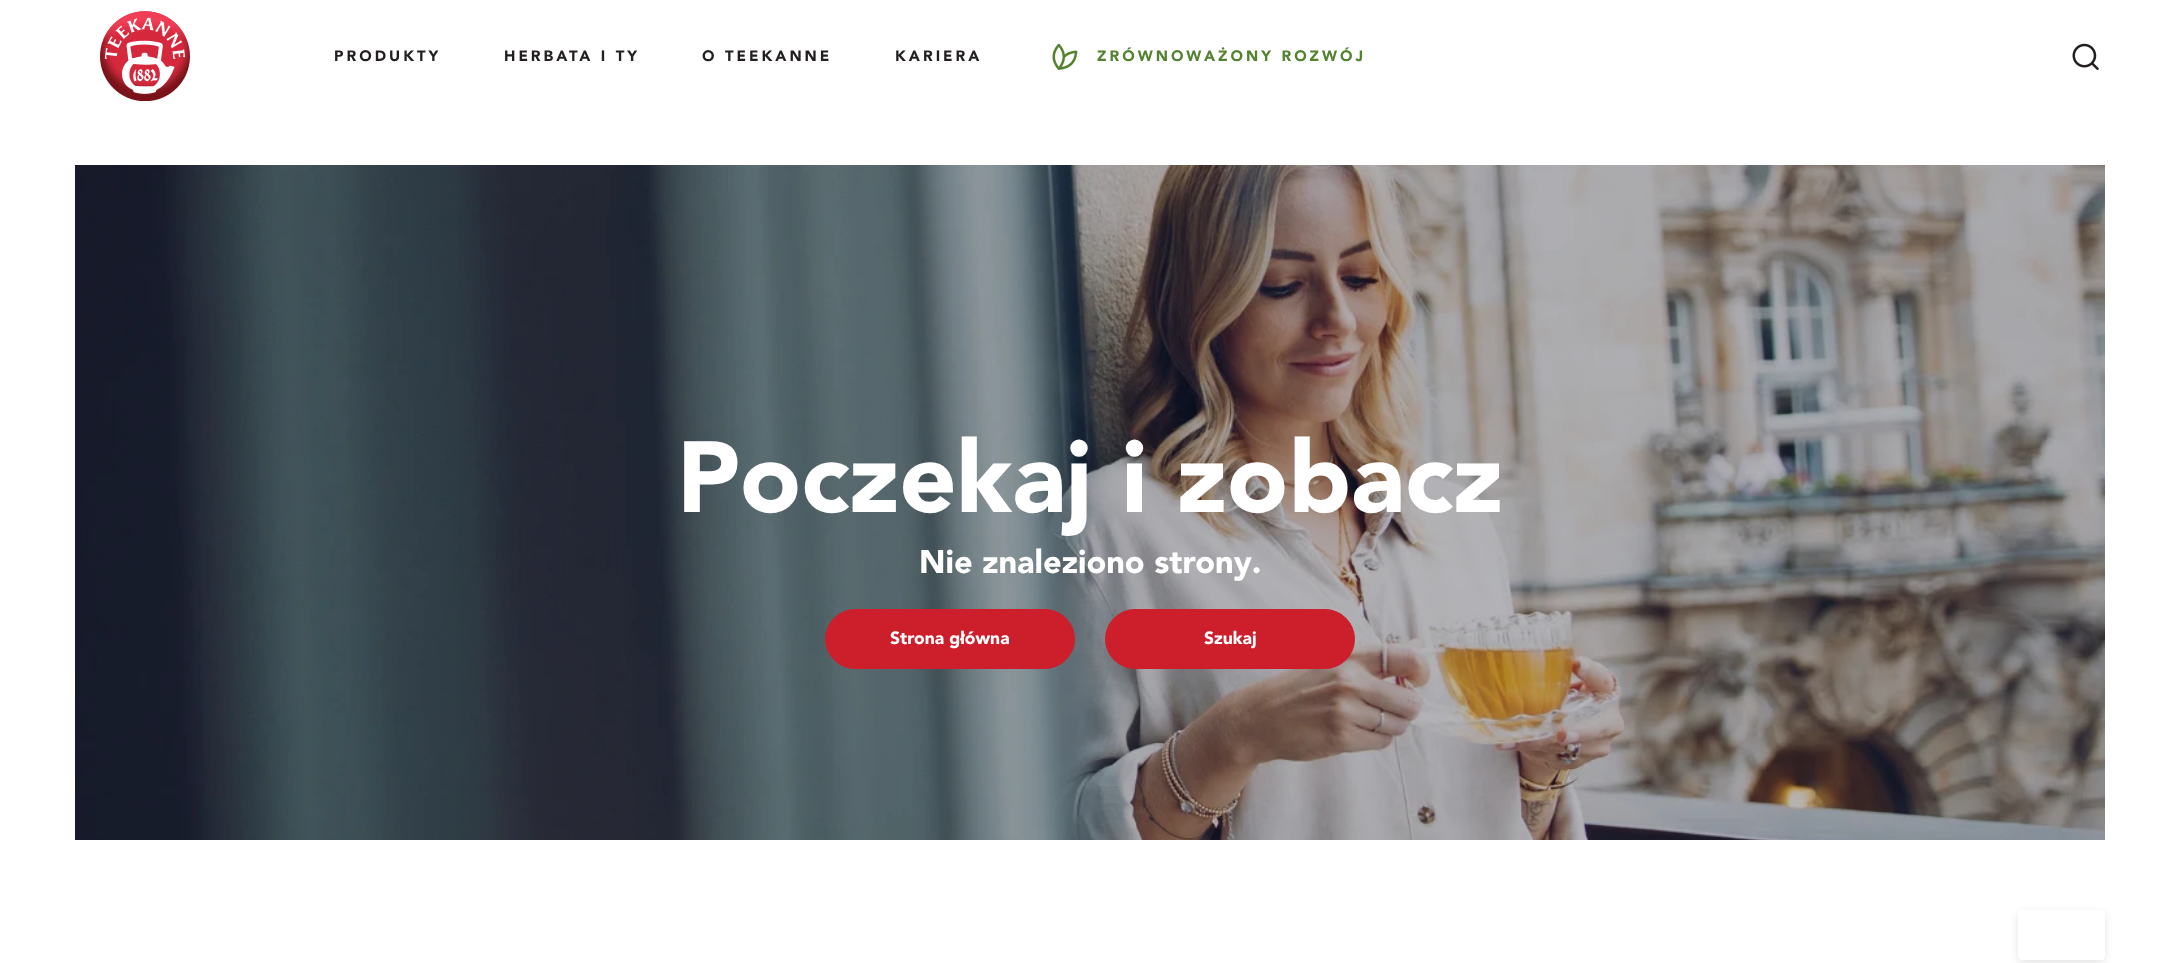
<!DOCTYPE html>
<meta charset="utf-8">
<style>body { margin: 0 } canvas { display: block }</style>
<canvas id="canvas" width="2179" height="963"></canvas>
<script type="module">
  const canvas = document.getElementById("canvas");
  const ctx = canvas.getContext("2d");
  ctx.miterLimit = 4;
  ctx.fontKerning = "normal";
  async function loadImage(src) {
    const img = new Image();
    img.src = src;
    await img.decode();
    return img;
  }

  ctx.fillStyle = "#ffffff";
  ctx.fillRect(0, 0, 2179, 963);
  ctx.drawImage(await loadImage("img1.png"), 100, 11, 90, 90);
  ctx.letterSpacing = "3px";
  ctx.font = "900 15px Avenir";
  ctx.fillStyle = "#231f20";
  ctx.fillText("PRODUKTY", 334, 61);
  ctx.fillText("HERBATA I TY", 504, 61);
  ctx.fillText("O TEEKANNE", 702, 61);
  ctx.fillText("KARIERA", 895, 61);
  ctx.drawImage(await loadImage("img2.png"), 1052, 43, 26, 27);
  ctx.fillStyle = "#548330";
  ctx.fillText("ZRÓWNOWAŻONY ROZWÓJ", 1097, 61);
  ctx.drawImage(await loadImage("img3.png"), 2072, 43, 27, 27);
  ctx.drawImage(await loadImage("img4.png"), 75, 165, 2030, 675);
  ctx.letterSpacing = "0px";
  ctx.font = "900 100px Avenir";
  ctx.fillStyle = "#ffffff";
  ctx.fillText("Poczekaj i zobacz", 677, 512);
  ctx.font = "900 32.5px Avenir";
  ctx.fillText("Nie znaleziono strony.", 919, 573);
  ctx.fillStyle = "#cd1e2c";
  ctx.beginPath();
  ctx.roundRect(825.5, 609.5, 249, 59, 29.5);
  ctx.fill();
  ctx.strokeStyle = "#cd1e2c";
  ctx.stroke();
  ctx.font = "900 17.5px Avenir";
  ctx.fillStyle = "#ffffff";
  ctx.fillText("Strona główna", 890, 644);
  ctx.fillStyle = "#cd1e2c";
  ctx.beginPath();
  ctx.roundRect(1105.5, 609.5, 249, 59, 29.5);
  ctx.fill();
  ctx.stroke();
  ctx.fillStyle = "#ffffff";
  ctx.fillText("Szukaj", 1204, 644);
  ctx.fillStyle = "rgba(0, 0, 0, 0.1)";
  ctx.filter = "blur(4.5px)";
  ctx.beginPath();
  ctx.roundRect(2018, 913, 87, 50, 4);
  ctx.fill();
  ctx.filter = "none";
  ctx.fillStyle = "#ffffff";
  ctx.beginPath();
  ctx.roundRect(2018, 910, 87, 50, 4);
  ctx.fill();
</script>
